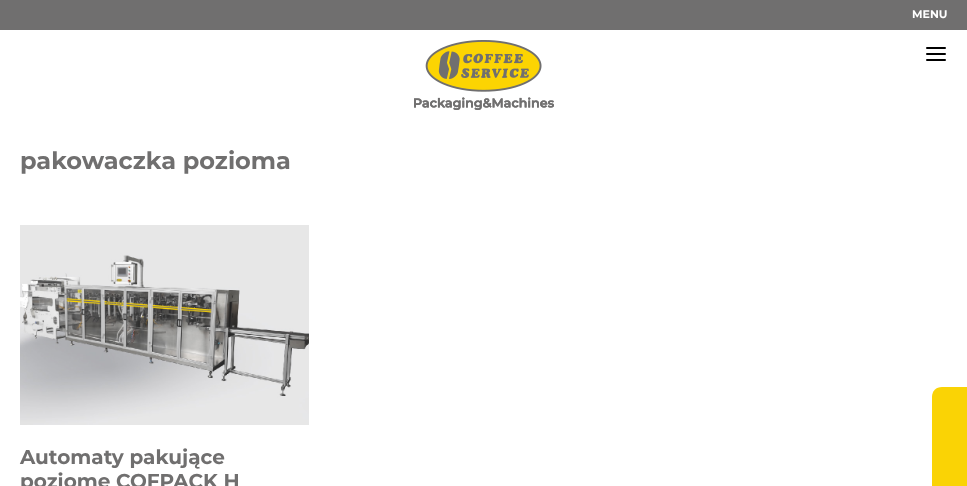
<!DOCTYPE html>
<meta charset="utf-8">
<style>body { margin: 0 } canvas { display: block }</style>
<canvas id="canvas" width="967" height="486"></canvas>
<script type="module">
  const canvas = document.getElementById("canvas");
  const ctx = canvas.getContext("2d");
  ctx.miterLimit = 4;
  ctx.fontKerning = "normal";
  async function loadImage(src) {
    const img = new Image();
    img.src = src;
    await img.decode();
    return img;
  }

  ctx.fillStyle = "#ffffff";
  ctx.fillRect(0, 0, 967, 486);
  ctx.fillStyle = "#706f6f";
  ctx.fillRect(0, 0, 967, 30);
  ctx.font = "bold 11px Montserrat";
  ctx.fillStyle = "#ffffff";
  ctx.fillText("MENU", 912, 18);
  ctx.drawImage(await loadImage("img1.png"), 414, 40, 140, 70);
  ctx.fillStyle = "#000000";
  ctx.beginPath();
  ctx.roundRect(926, 47, 20, 2, 1);
  ctx.fill();
  ctx.beginPath();
  ctx.roundRect(926, 53, 20, 2, 1);
  ctx.fill();
  ctx.beginPath();
  ctx.roundRect(926, 59, 20, 2, 1);
  ctx.fill();
  ctx.font = "bold 24px Montserrat";
  ctx.fillStyle = "#706f6f";
  ctx.fillText("pakowaczka pozioma", 20, 169);
  ctx.drawImage(await loadImage("img2.png"), 20, 225, 289, 200);
  ctx.font = "bold 20px Montserrat";
  ctx.fillText("Automaty pakujące", 20, 464);
  ctx.fillText("poziome COFPACK H", 20, 488);
  ctx.fillStyle = "#fad305";
  ctx.beginPath();
  ctx.moveTo(932, 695);
  ctx.lineTo(932, 397);
  ctx.bezierCurveTo(932, 391, 936, 387, 942, 387);
  ctx.lineTo(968, 387);
  ctx.lineTo(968, 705);
  ctx.lineTo(942, 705);
  ctx.bezierCurveTo(936, 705, 932, 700, 932, 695);
  ctx.closePath();
  ctx.fill();
</script>
